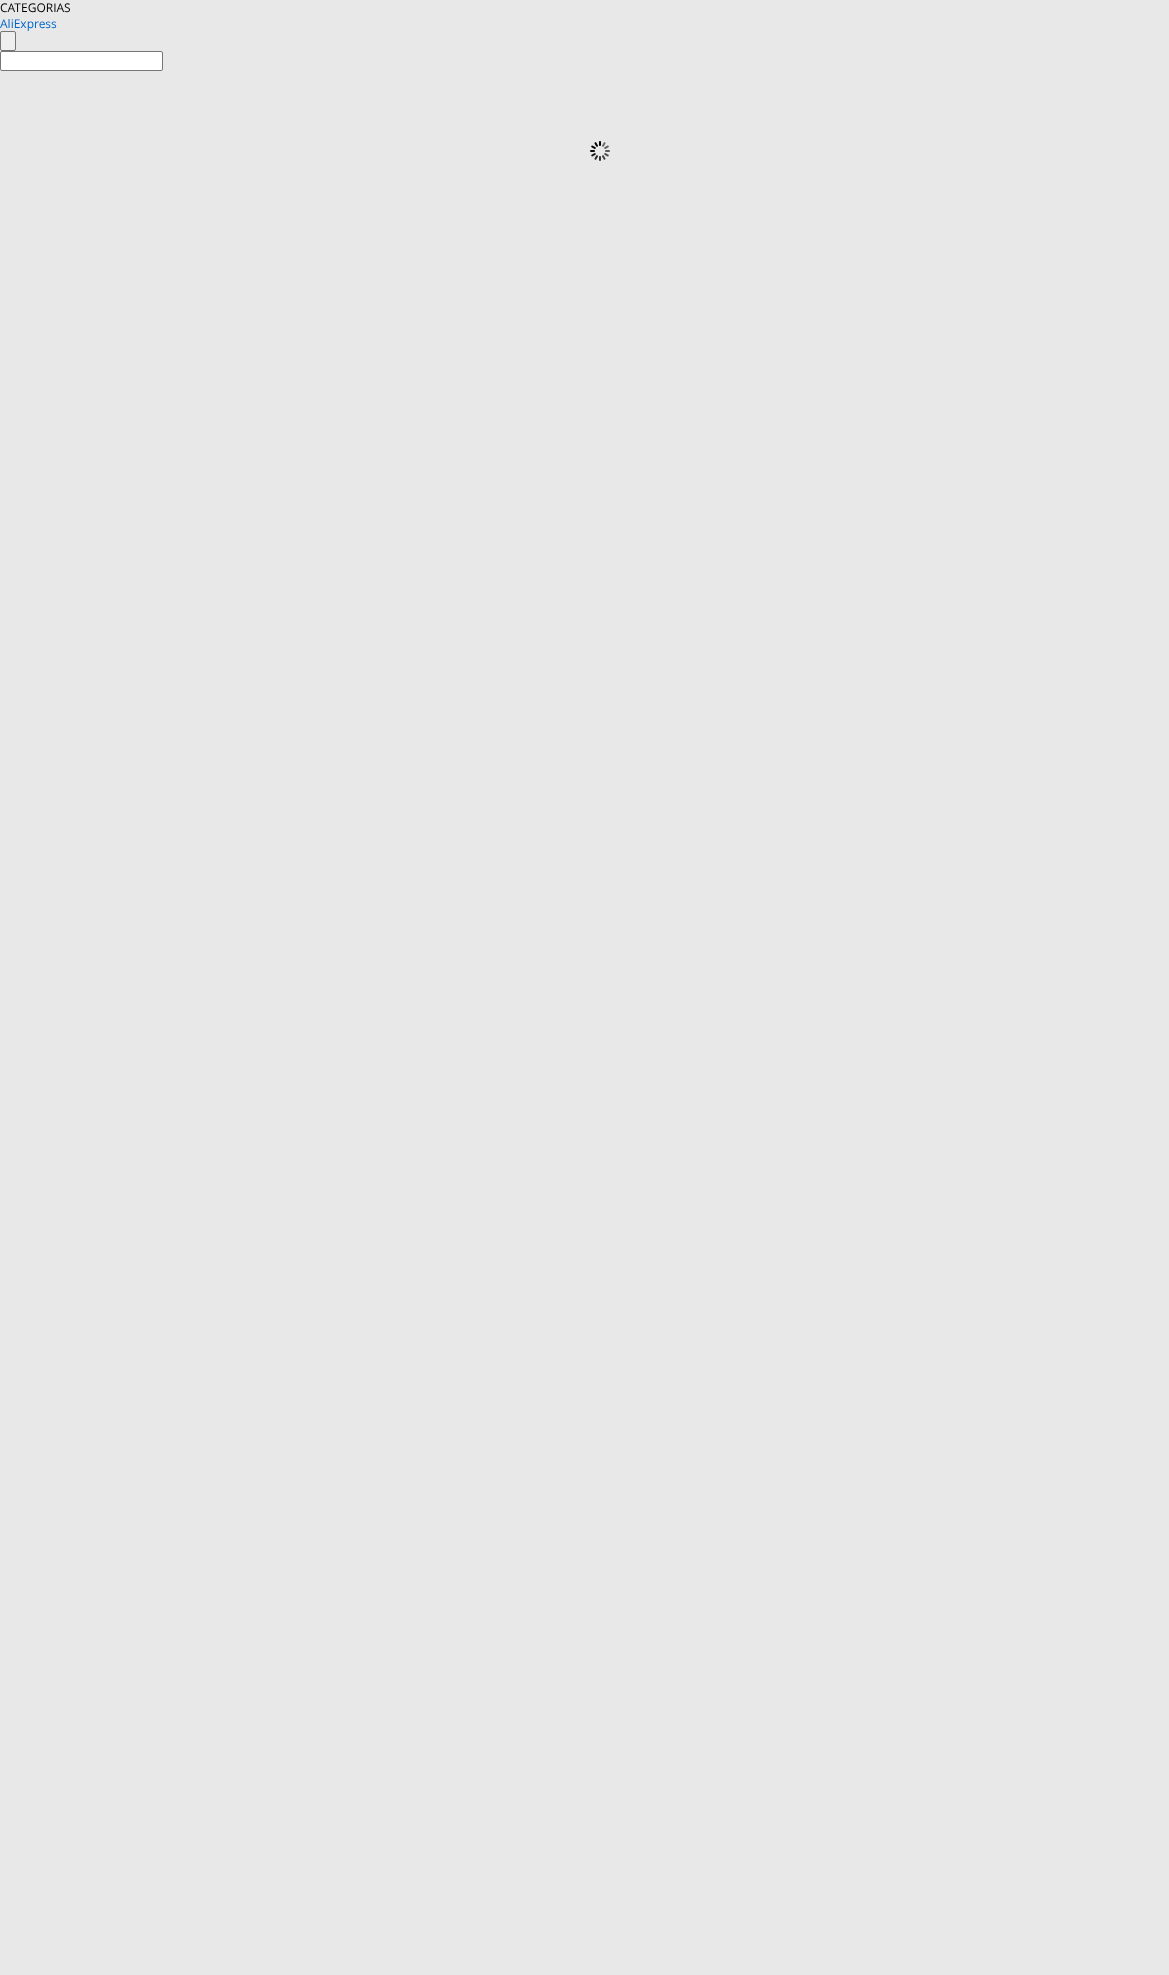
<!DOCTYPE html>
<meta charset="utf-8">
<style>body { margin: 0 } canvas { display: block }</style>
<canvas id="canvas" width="1169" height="1975"></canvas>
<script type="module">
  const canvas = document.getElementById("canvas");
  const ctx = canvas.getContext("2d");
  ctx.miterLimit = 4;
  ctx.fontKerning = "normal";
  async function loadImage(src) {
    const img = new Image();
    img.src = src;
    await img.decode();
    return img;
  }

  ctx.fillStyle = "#e8e8e8";
  ctx.fillRect(0, 0, 1169, 1975);
  ctx.font = "12px Open Sans";
  ctx.fillStyle = "#000000";
  ctx.fillText("CATEGORIAS", 0, 12);
  ctx.fillStyle = "#0066cc";
  ctx.fillText("AliExpress", 0, 28);
  ctx.fillStyle = "#efefef";
  ctx.beginPath();
  ctx.roundRect(0.5, 31.5, 15, 19, 1.5);
  ctx.fill();
  ctx.strokeStyle = "#767676";
  ctx.stroke();
  ctx.fillStyle = "#ffffff";
  ctx.beginPath();
  ctx.roundRect(0.5, 51.5, 162, 19, 1.5);
  ctx.fill();
  ctx.stroke();
  ctx.drawImage(await loadImage("img1.png"), 590, 141, 20, 20);
</script>
